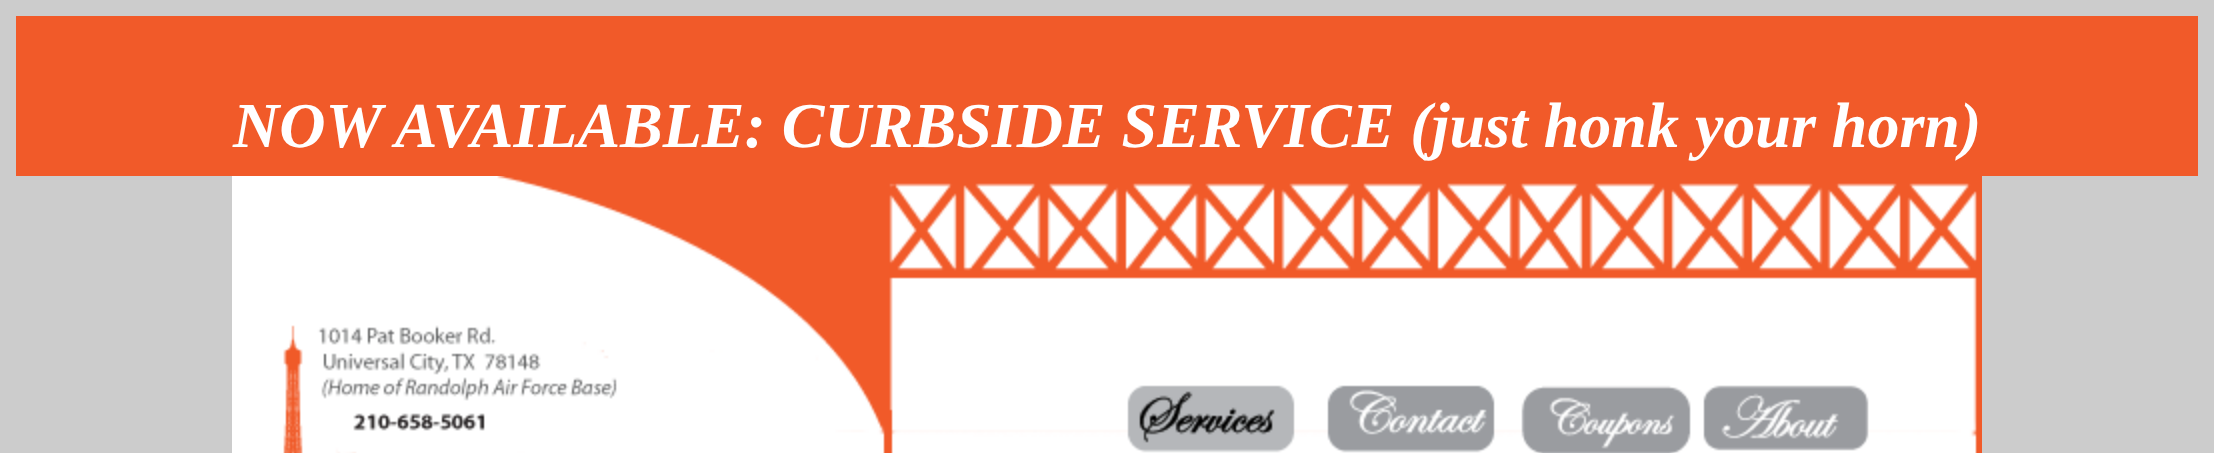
<!DOCTYPE html>
<meta charset="utf-8">
<style>body { margin: 0 } canvas { display: block }</style>
<canvas id="canvas" width="2214" height="453"></canvas>
<script type="module">
  const canvas = document.getElementById("canvas");
  const ctx = canvas.getContext("2d");
  ctx.miterLimit = 4;
  ctx.fontKerning = "normal";
  async function loadImage(src) {
    const img = new Image();
    img.src = src;
    await img.decode();
    return img;
  }

  ctx.fillStyle = "#cccccc";
  ctx.fillRect(0, 0, 2214, 453);
  ctx.fillStyle = "#f15a29";
  ctx.fillRect(16, 16, 2182, 160);
  ctx.font = "italic bold 64px Liberation Serif";
  ctx.fillStyle = "#ffffff";
  ctx.fillText("NOW AVAILABLE: CURBSIDE SERVICE (just honk your horn)", 233, 147);
  ctx.fillRect(232, 176, 51, 277);
  ctx.drawImage(await loadImage("img1.png"), 283, 176, 1699, 277);
  ctx.drawImage(await loadImage("img2.png"), 1127, 385, 168, 68);
  ctx.drawImage(await loadImage("img3.png"), 1327, 385, 168, 68);
  ctx.drawImage(await loadImage("img4.png"), 1521, 385, 170, 68);
  ctx.drawImage(await loadImage("img5.png"), 1703, 385, 166, 66);
</script>
